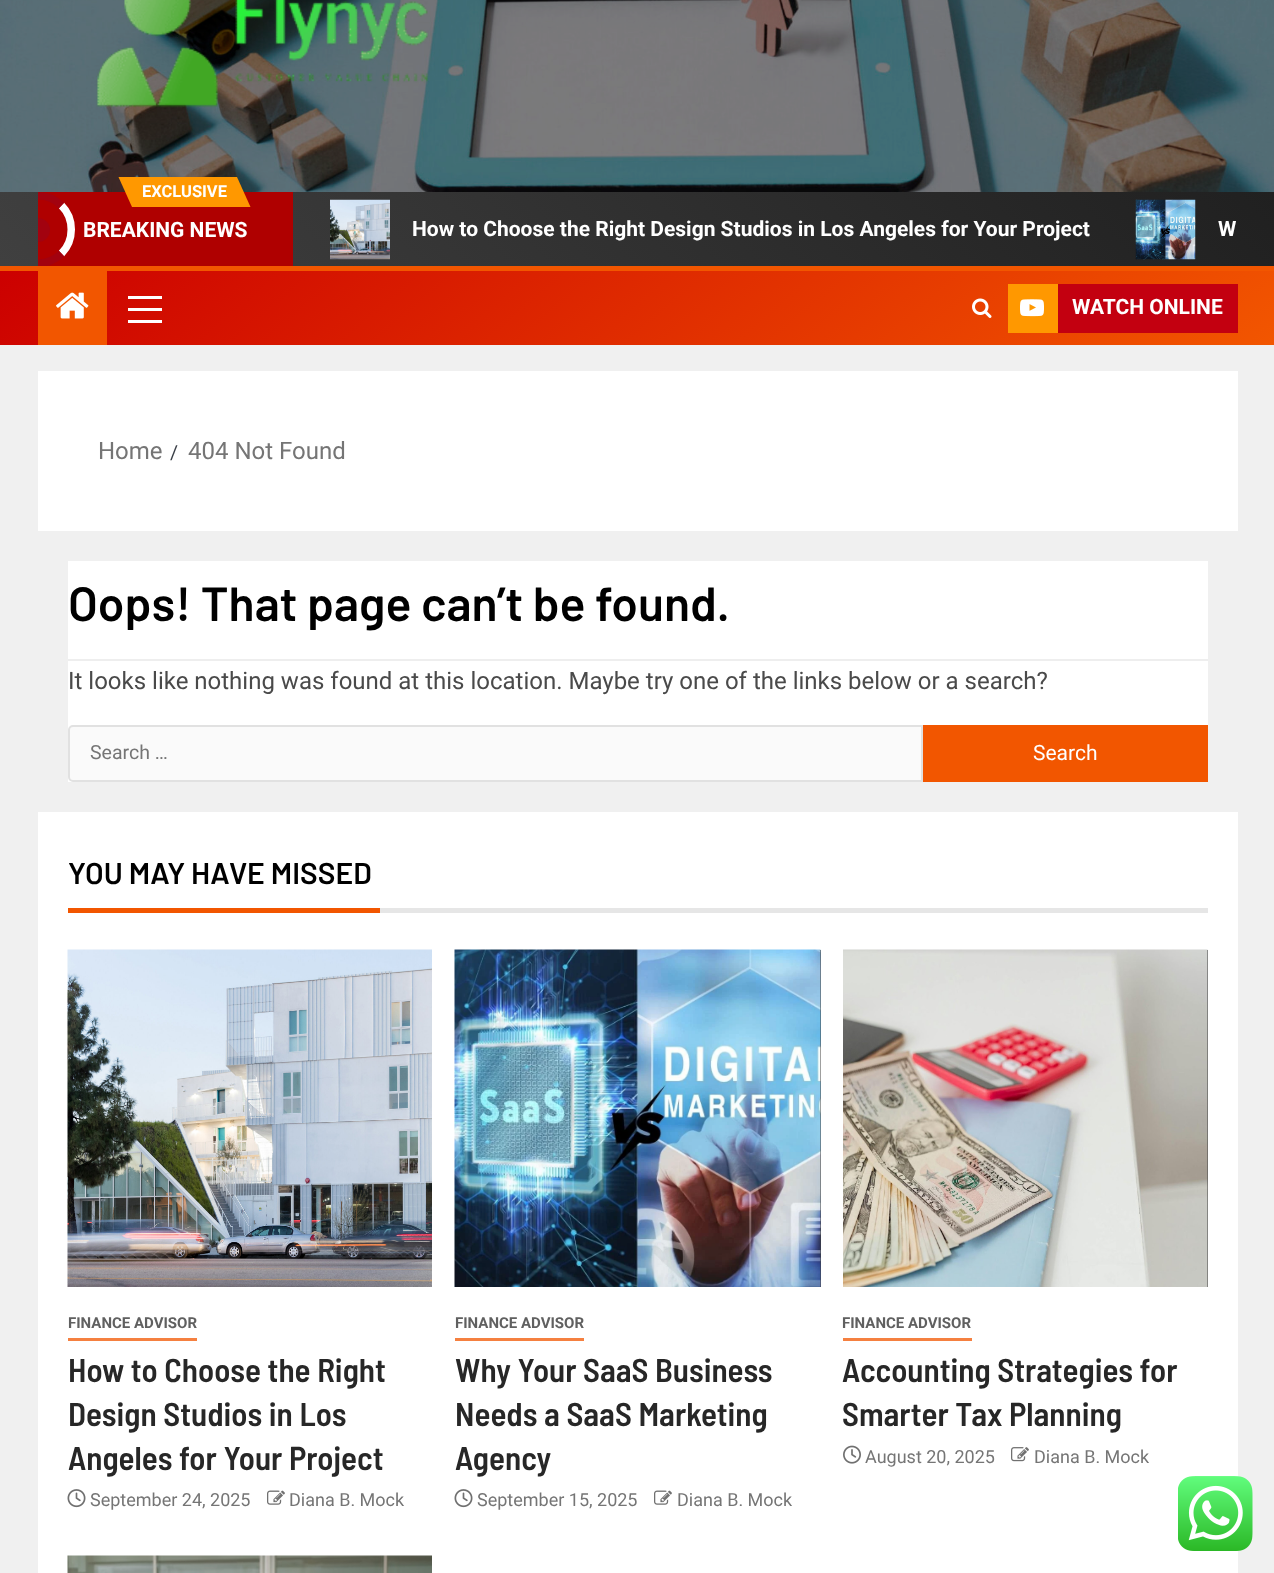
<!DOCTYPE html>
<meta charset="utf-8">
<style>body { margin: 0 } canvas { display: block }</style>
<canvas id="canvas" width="1274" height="1573"></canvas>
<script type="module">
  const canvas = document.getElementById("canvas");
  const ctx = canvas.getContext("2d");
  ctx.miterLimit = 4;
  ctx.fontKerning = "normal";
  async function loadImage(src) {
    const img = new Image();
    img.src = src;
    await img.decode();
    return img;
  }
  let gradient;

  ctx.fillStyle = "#f0f0f0";
  ctx.fillRect(0, 0, 1274, 1573);
  ctx.drawImage(await loadImage("img1.png"), 0, 0, 1274, 192);
  ctx.drawImage(await loadImage("img2.png"), 96, 0, 333, 108);
  gradient = ctx.createLinearGradient(300, 566, 975, -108);
  gradient.addColorStop(0, "#404040");
  gradient.addColorStop(1, "#202020");
  ctx.fillStyle = gradient;
  ctx.fillRect(0, 192, 1274, 74);
  ctx.fillStyle = "#af0000";
  ctx.fillRect(38, 192, 255, 74);
  ctx.fillStyle = "#ff9800";
  ctx.fillRect(132, 177, 105, 30);
  ctx.beginPath();
  ctx.moveTo(118.5, 177);
  ctx.lineTo(132, 177);
  ctx.lineTo(132, 207);
  ctx.closePath();
  ctx.fill();
  ctx.font = "bold 16.5px Roboto";
  ctx.fillStyle = "#ffffff";
  ctx.fillText("EXCLUSIVE", 142, 197);
  ctx.fillStyle = "#ff9800";
  ctx.beginPath();
  ctx.moveTo(250.5, 207);
  ctx.lineTo(237, 207);
  ctx.lineTo(237, 177);
  ctx.closePath();
  ctx.fill();
  ctx.beginPath();
  ctx.moveTo(61.5, 205.5);
  ctx.bezierCurveTo(74.5, 218.5, 74.5, 240.5, 61.5, 253.5);
  ctx.strokeStyle = "#ffffff";
  ctx.lineWidth = 7.5;
  ctx.stroke();
  ctx.save();
  ctx.beginPath();
  ctx.rect(38, 192, 255, 74);
  ctx.clip();
  ctx.beginPath();
  ctx.moveTo(13.5, 205.5);
  ctx.bezierCurveTo(26.5, 192.5, 48.5, 192.5, 61.5, 205.5);
  ctx.strokeStyle = "#a2020f";
  ctx.stroke();
  ctx.beginPath();
  ctx.moveTo(61.5, 253.5);
  ctx.bezierCurveTo(48.5, 266.5, 26.5, 266.5, 13.5, 253.5);
  ctx.stroke();
  ctx.restore();
  ctx.fillStyle = "#a2020f";
  ctx.beginPath();
  ctx.roundRect(38, 218, 12, 24, [0, 12, 12, 0]);
  ctx.fill();
  ctx.font = "bold 21px Roboto";
  ctx.fillStyle = "#ffffff";
  ctx.fillText("BREAKING NEWS", 83, 237);
  ctx.drawImage(await loadImage("img3.png"), 330, 199, 60, 61);
  ctx.fillText("How to Choose the Right Design Studios in Los Angeles for Your Project", 412, 236);
  ctx.drawImage(await loadImage("img4.png"), 1135, 199, 61, 61);
  ctx.fillText("W", 1218, 236);
  gradient = ctx.createLinearGradient(356, -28, 919, 643);
  gradient.addColorStop(0, "#cc0000");
  gradient.addColorStop(1, "#f25600");
  ctx.fillStyle = gradient;
  ctx.fillRect(0, 271, 1274, 74);
  ctx.fillStyle = "#f25600";
  ctx.fillRect(0, 266, 1274, 5);
  ctx.fillRect(38, 271, 69, 74);
  ctx.drawImage(await loadImage("img5.png"), 56, 292, 33, 27);
  ctx.fillStyle = "#ffffff";
  ctx.fillRect(128, 308, 34, 3);
  ctx.fillRect(128, 296, 34, 3);
  ctx.fillRect(128, 320, 34, 3);
  ctx.drawImage(await loadImage("img6.png"), 972, 298, 20, 20);
  ctx.fillStyle = "#ff9800";
  ctx.fillRect(1008, 284, 50, 49);
  ctx.drawImage(await loadImage("img7.png"), 1020, 299, 24, 18);
  ctx.fillStyle = "#c30010";
  ctx.fillRect(1058, 284, 180, 49);
  ctx.fillStyle = "#ffffff";
  ctx.fillText("WATCH ONLINE", 1072, 314);
  ctx.fillRect(38, 371, 1200, 160);
  ctx.font = "24px Roboto";
  ctx.fillStyle = "#757575";
  ctx.fillText("Home", 98, 459);
  ctx.font = "19.5px Roboto";
  ctx.fillStyle = "#393e46";
  ctx.fillText("/", 170, 459);
  ctx.font = "24px Roboto";
  ctx.fillStyle = "#757575";
  ctx.fillText("404 Not Found", 188, 459);
  ctx.fillStyle = "#ffffff";
  ctx.fillRect(68, 561, 1140, 221);
  ctx.fillStyle = "#eeeeee";
  ctx.fillRect(68, 659, 1140, 2);
  ctx.font = "600 48px Barlow";
  ctx.fillStyle = "#000000";
  ctx.fillText("Oops! That page can’t be found.", 68, 621);
  ctx.font = "24px Roboto";
  ctx.fillStyle = "#4a4a4a";
  ctx.fillText("It looks like nothing was found at this location. Maybe try one of the links below or a search?", 68, 689);
  ctx.fillStyle = "#fafafa";
  ctx.beginPath();
  ctx.roundRect(69, 726, 853, 55, [4, 0, 0, 4]);
  ctx.fill();
  ctx.strokeStyle = "#e1e1e1";
  ctx.lineWidth = 2;
  ctx.stroke();
  ctx.font = "19.5px Roboto";
  ctx.fillStyle = "#757575";
  ctx.fillText("Search …", 90, 759);
  ctx.fillStyle = "#f25600";
  ctx.fillRect(923, 725, 285, 57);
  ctx.font = "21px Roboto";
  ctx.fillStyle = "#ffffff";
  ctx.fillText("Search", 1033, 760);
  ctx.fillRect(38, 812, 1200, 761);
  ctx.font = "600 30px Barlow";
  ctx.fillStyle = "#000000";
  ctx.fillText("YOU MAY HAVE MISSED", 68, 884);
  ctx.fillStyle = "#f25600";
  ctx.fillRect(68, 908, 312, 5);
  ctx.fillStyle = "#e6e6e6";
  ctx.fillRect(380, 908, 828, 5);
  ctx.drawImage(await loadImage("img8.png"), 67, 949, 365, 338);
  ctx.fillStyle = "#f58040";
  ctx.fillRect(68, 1338, 129, 3);
  ctx.font = "bold 15px Roboto";
  ctx.fillStyle = "#606060";
  ctx.fillText("FINANCE ADVISOR", 68, 1328);
  ctx.font = "600 33px Barlow Semi Condensed";
  ctx.fillStyle = "#272727";
  ctx.fillText("How to Choose the Right", 68, 1382);
  ctx.fillText("Design Studios in Los", 68, 1426);
  ctx.fillText("Angeles for Your Project", 68, 1470);
  ctx.drawImage(await loadImage("img9.png"), 67, 1489, 19, 19);
  ctx.font = "18px Roboto";
  ctx.fillStyle = "#757575";
  ctx.fillText("September 24, 2025", 90, 1506);
  ctx.drawImage(await loadImage("img10.png"), 267, 1490, 18, 15);
  ctx.fillText("Diana B. Mock", 289, 1506);
  ctx.fillStyle = "#404040";
  ctx.fillRect(820, 950, 1, 337);
  ctx.drawImage(await loadImage("img11.png"), 454, 949, 367, 338);
  ctx.fillStyle = "#f58040";
  ctx.fillRect(455, 1338, 129, 3);
  ctx.font = "bold 15px Roboto";
  ctx.fillStyle = "#606060";
  ctx.fillText("FINANCE ADVISOR", 455, 1328);
  ctx.font = "600 33px Barlow Semi Condensed";
  ctx.fillStyle = "#272727";
  ctx.fillText("Why Your SaaS Business", 455, 1382);
  ctx.fillText("Needs a SaaS Marketing", 455, 1426);
  ctx.fillText("Agency", 455, 1470);
  ctx.drawImage(await loadImage("img9.png"), 454, 1489, 19, 19);
  ctx.font = "18px Roboto";
  ctx.fillStyle = "#757575";
  ctx.fillText("September 15, 2025", 477, 1506);
  ctx.drawImage(await loadImage("img10.png"), 654, 1490, 18, 15);
  ctx.fillText("Diana B. Mock", 677, 1506);
  ctx.fillStyle = "#404040";
  ctx.fillRect(1207, 950, 1, 337);
  ctx.drawImage(await loadImage("img12.png"), 843, 949, 365, 338);
  ctx.fillStyle = "#f58040";
  ctx.fillRect(843, 1338, 129, 3);
  ctx.font = "bold 15px Roboto";
  ctx.fillStyle = "#606060";
  ctx.fillText("FINANCE ADVISOR", 842, 1328);
  ctx.font = "600 33px Barlow Semi Condensed";
  ctx.fillStyle = "#272727";
  ctx.fillText("Accounting Strategies for", 842, 1382);
  ctx.fillText("Smarter Tax Planning", 842, 1426);
  ctx.drawImage(await loadImage("img13.png"), 843, 1445, 18, 19);
  ctx.font = "18px Roboto";
  ctx.fillStyle = "#757575";
  ctx.fillText("August 20, 2025", 865, 1463);
  ctx.drawImage(await loadImage("img14.png"), 1011, 1447, 18, 15);
  ctx.fillText("Diana B. Mock", 1034, 1463);
  ctx.drawImage(await loadImage("img15.png"), 67, 1555, 365, 18);
  ctx.drawImage(await loadImage("img16.png"), 1178, 1476, 75, 75);
</script>
